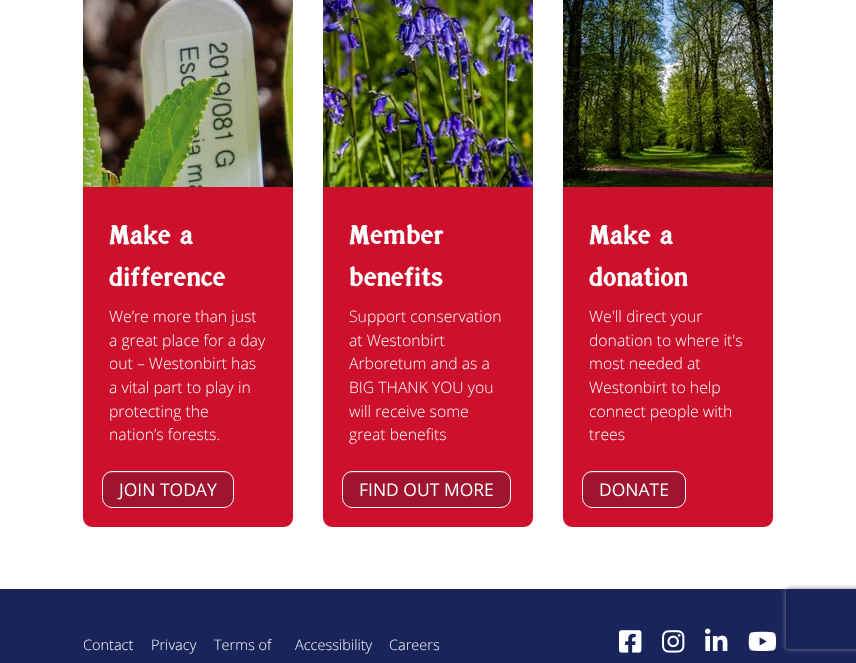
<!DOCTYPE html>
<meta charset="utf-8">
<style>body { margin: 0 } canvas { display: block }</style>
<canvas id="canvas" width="856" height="663"></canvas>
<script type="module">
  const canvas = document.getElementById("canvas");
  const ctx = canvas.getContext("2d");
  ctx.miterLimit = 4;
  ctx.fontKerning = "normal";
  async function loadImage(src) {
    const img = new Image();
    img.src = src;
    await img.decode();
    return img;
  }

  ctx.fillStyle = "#ffffff";
  ctx.fillRect(0, 0, 856, 663);
  ctx.fillStyle = "#cd112d";
  ctx.beginPath();
  ctx.roundRect(83, -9, 210, 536, 9);
  ctx.fill();
  ctx.drawImage(await loadImage("img1.png"), 83, 0, 210, 187);
  ctx.font = "bold 28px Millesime";
  ctx.fillStyle = "#ffffff";
  ctx.fillText("Make a", 109, 244);
  ctx.fillText("difference", 109, 286);
  ctx.font = "300 15.75px Open Sans";
  ctx.fillText("We’re more than just", 109, 322);
  ctx.fillText("a great place for a day", 109, 346);
  ctx.fillText("out – Westonbirt has", 109, 369);
  ctx.fillText("a vital part to play in", 109, 393);
  ctx.fillText("protecting the", 109, 417);
  ctx.fillText("nation’s forests.", 109, 440);
  ctx.fillStyle = "rgba(0, 0, 0, 0.07)";
  ctx.filter = "blur(0.5px)";
  ctx.beginPath();
  ctx.roundRect(102, 472, 132, 37, 10);
  ctx.fill();
  ctx.filter = "none";
  ctx.fillStyle = "#a0142f";
  ctx.beginPath();
  ctx.roundRect(102, 471, 132, 37, 10);
  ctx.fill();
  ctx.fillStyle = "#ae374e";
  ctx.beginPath();
  ctx.moveTo(112, 473);
  ctx.lineTo(224, 473);
  ctx.bezierCurveTo(229, 473, 233, 477, 233, 482);
  ctx.bezierCurveTo(233, 467, 214, 472, 205, 472);
  ctx.lineTo(131, 472);
  ctx.bezierCurveTo(122, 472, 103, 467, 103, 482);
  ctx.bezierCurveTo(103, 477, 107, 473, 112, 473);
  ctx.closePath();
  ctx.fill();
  ctx.beginPath();
  ctx.roundRect(102.5, 471.5, 131, 36, 9.5);
  ctx.strokeStyle = "#ffffff";
  ctx.stroke();
  ctx.font = "17.5px Open Sans";
  ctx.fillStyle = "#ffffff";
  ctx.fillText("JOIN TODAY", 119, 496);
  ctx.fillStyle = "#cd112d";
  ctx.beginPath();
  ctx.roundRect(323, -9, 210, 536, 9);
  ctx.fill();
  ctx.drawImage(await loadImage("img2.png"), 323, 0, 210, 187);
  ctx.font = "bold 28px Millesime";
  ctx.fillStyle = "#ffffff";
  ctx.fillText("Member", 349, 244);
  ctx.fillText("benefits", 349, 286);
  ctx.font = "300 15.75px Open Sans";
  ctx.fillText("Support conservation", 349, 322);
  ctx.fillText("at Westonbirt", 349, 346);
  ctx.fillText("Arboretum and as a", 349, 369);
  ctx.fillText("BIG THANK YOU you", 349, 393);
  ctx.fillText("will receive some", 349, 417);
  ctx.fillText("great benefits", 349, 440);
  ctx.fillStyle = "rgba(0, 0, 0, 0.07)";
  ctx.filter = "blur(0.5px)";
  ctx.beginPath();
  ctx.roundRect(342, 472, 169, 37, 10);
  ctx.fill();
  ctx.filter = "none";
  ctx.fillStyle = "#a0142f";
  ctx.beginPath();
  ctx.roundRect(342, 471, 169, 37, 10);
  ctx.fill();
  ctx.fillStyle = "#ae374e";
  ctx.beginPath();
  ctx.moveTo(352, 473);
  ctx.lineTo(501, 473);
  ctx.bezierCurveTo(506, 473, 510, 477, 510, 482);
  ctx.bezierCurveTo(510, 466, 484, 472, 476, 472);
  ctx.lineTo(377, 472);
  ctx.bezierCurveTo(369, 472, 343, 466, 343, 482);
  ctx.bezierCurveTo(343, 477, 347, 473, 352, 473);
  ctx.closePath();
  ctx.fill();
  ctx.beginPath();
  ctx.roundRect(342.5, 471.5, 168, 36, 9.5);
  ctx.stroke();
  ctx.font = "17.5px Open Sans";
  ctx.fillStyle = "#ffffff";
  ctx.fillText("FIND OUT MORE", 359, 496);
  ctx.fillStyle = "#cd112d";
  ctx.beginPath();
  ctx.roundRect(563, -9, 210, 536, 9);
  ctx.fill();
  ctx.drawImage(await loadImage("img3.png"), 563, 0, 210, 187);
  ctx.font = "bold 28px Millesime";
  ctx.fillStyle = "#ffffff";
  ctx.fillText("Make a", 589, 244);
  ctx.fillText("donation", 589, 286);
  ctx.font = "300 15.75px Open Sans";
  ctx.fillText("We'll direct your", 589, 322);
  ctx.fillText("donation to where it's", 589, 346);
  ctx.fillText("most needed at", 589, 369);
  ctx.fillText("Westonbirt to help", 589, 393);
  ctx.fillText("connect people with", 589, 417);
  ctx.fillText("trees", 589, 440);
  ctx.fillStyle = "rgba(0, 0, 0, 0.07)";
  ctx.filter = "blur(0.5px)";
  ctx.beginPath();
  ctx.roundRect(582, 472, 104, 37, 10);
  ctx.fill();
  ctx.filter = "none";
  ctx.fillStyle = "#a0142f";
  ctx.beginPath();
  ctx.roundRect(582, 471, 104, 37, 10);
  ctx.fill();
  ctx.fillStyle = "#ae374e";
  ctx.beginPath();
  ctx.moveTo(592, 473);
  ctx.lineTo(676, 473);
  ctx.bezierCurveTo(681, 473, 685, 477, 685, 482);
  ctx.bezierCurveTo(685, 469, 671, 472, 662, 472);
  ctx.lineTo(606, 472);
  ctx.bezierCurveTo(597, 472, 583, 469, 583, 482);
  ctx.bezierCurveTo(583, 477, 587, 473, 592, 473);
  ctx.closePath();
  ctx.fill();
  ctx.beginPath();
  ctx.roundRect(582.5, 471.5, 103, 36, 9.5);
  ctx.stroke();
  ctx.font = "17.5px Open Sans";
  ctx.fillStyle = "#ffffff";
  ctx.fillText("DONATE", 599, 496);
  ctx.fillStyle = "#19255a";
  ctx.fillRect(0, 589, 856, 74);
  ctx.font = "300 14.5px Open Sans";
  ctx.fillStyle = "#ffffff";
  ctx.fillText("Contact", 83, 650);
  ctx.fillText("Privacy", 151, 650);
  ctx.fillText("Terms of", 214, 650);
  ctx.fillText("Accessibility", 295, 650);
  ctx.fillText("Careers", 389, 650);
  ctx.drawImage(await loadImage("img4.png"), 619, 630, 23, 23);
  ctx.drawImage(await loadImage("img5.png"), 662, 630, 23, 23);
  ctx.drawImage(await loadImage("img6.png"), 705, 628, 23, 23);
  ctx.drawImage(await loadImage("img7.png"), 748, 631, 29, 20);
  ctx.save();
  ctx.beginPath();
  ctx.moveTo(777, 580);
  ctx.lineTo(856, 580);
  ctx.lineTo(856, 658);
  ctx.lineTo(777, 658);
  ctx.closePath();
  ctx.moveTo(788, 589);
  ctx.lineTo(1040, 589);
  ctx.bezierCurveTo(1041, 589, 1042, 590, 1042, 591);
  ctx.lineTo(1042, 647);
  ctx.bezierCurveTo(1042, 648, 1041, 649, 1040, 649);
  ctx.lineTo(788, 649);
  ctx.bezierCurveTo(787, 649, 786, 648, 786, 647);
  ctx.lineTo(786, 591);
  ctx.bezierCurveTo(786, 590, 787, 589, 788, 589);
  ctx.closePath();
  ctx.clip("evenodd");
  ctx.fillStyle = "#808080";
  ctx.filter = "blur(2.5px)";
  ctx.beginPath();
  ctx.roundRect(786, 589, 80, 60, 2);
  ctx.fill();
  ctx.filter = "none";
  ctx.restore();
</script>
